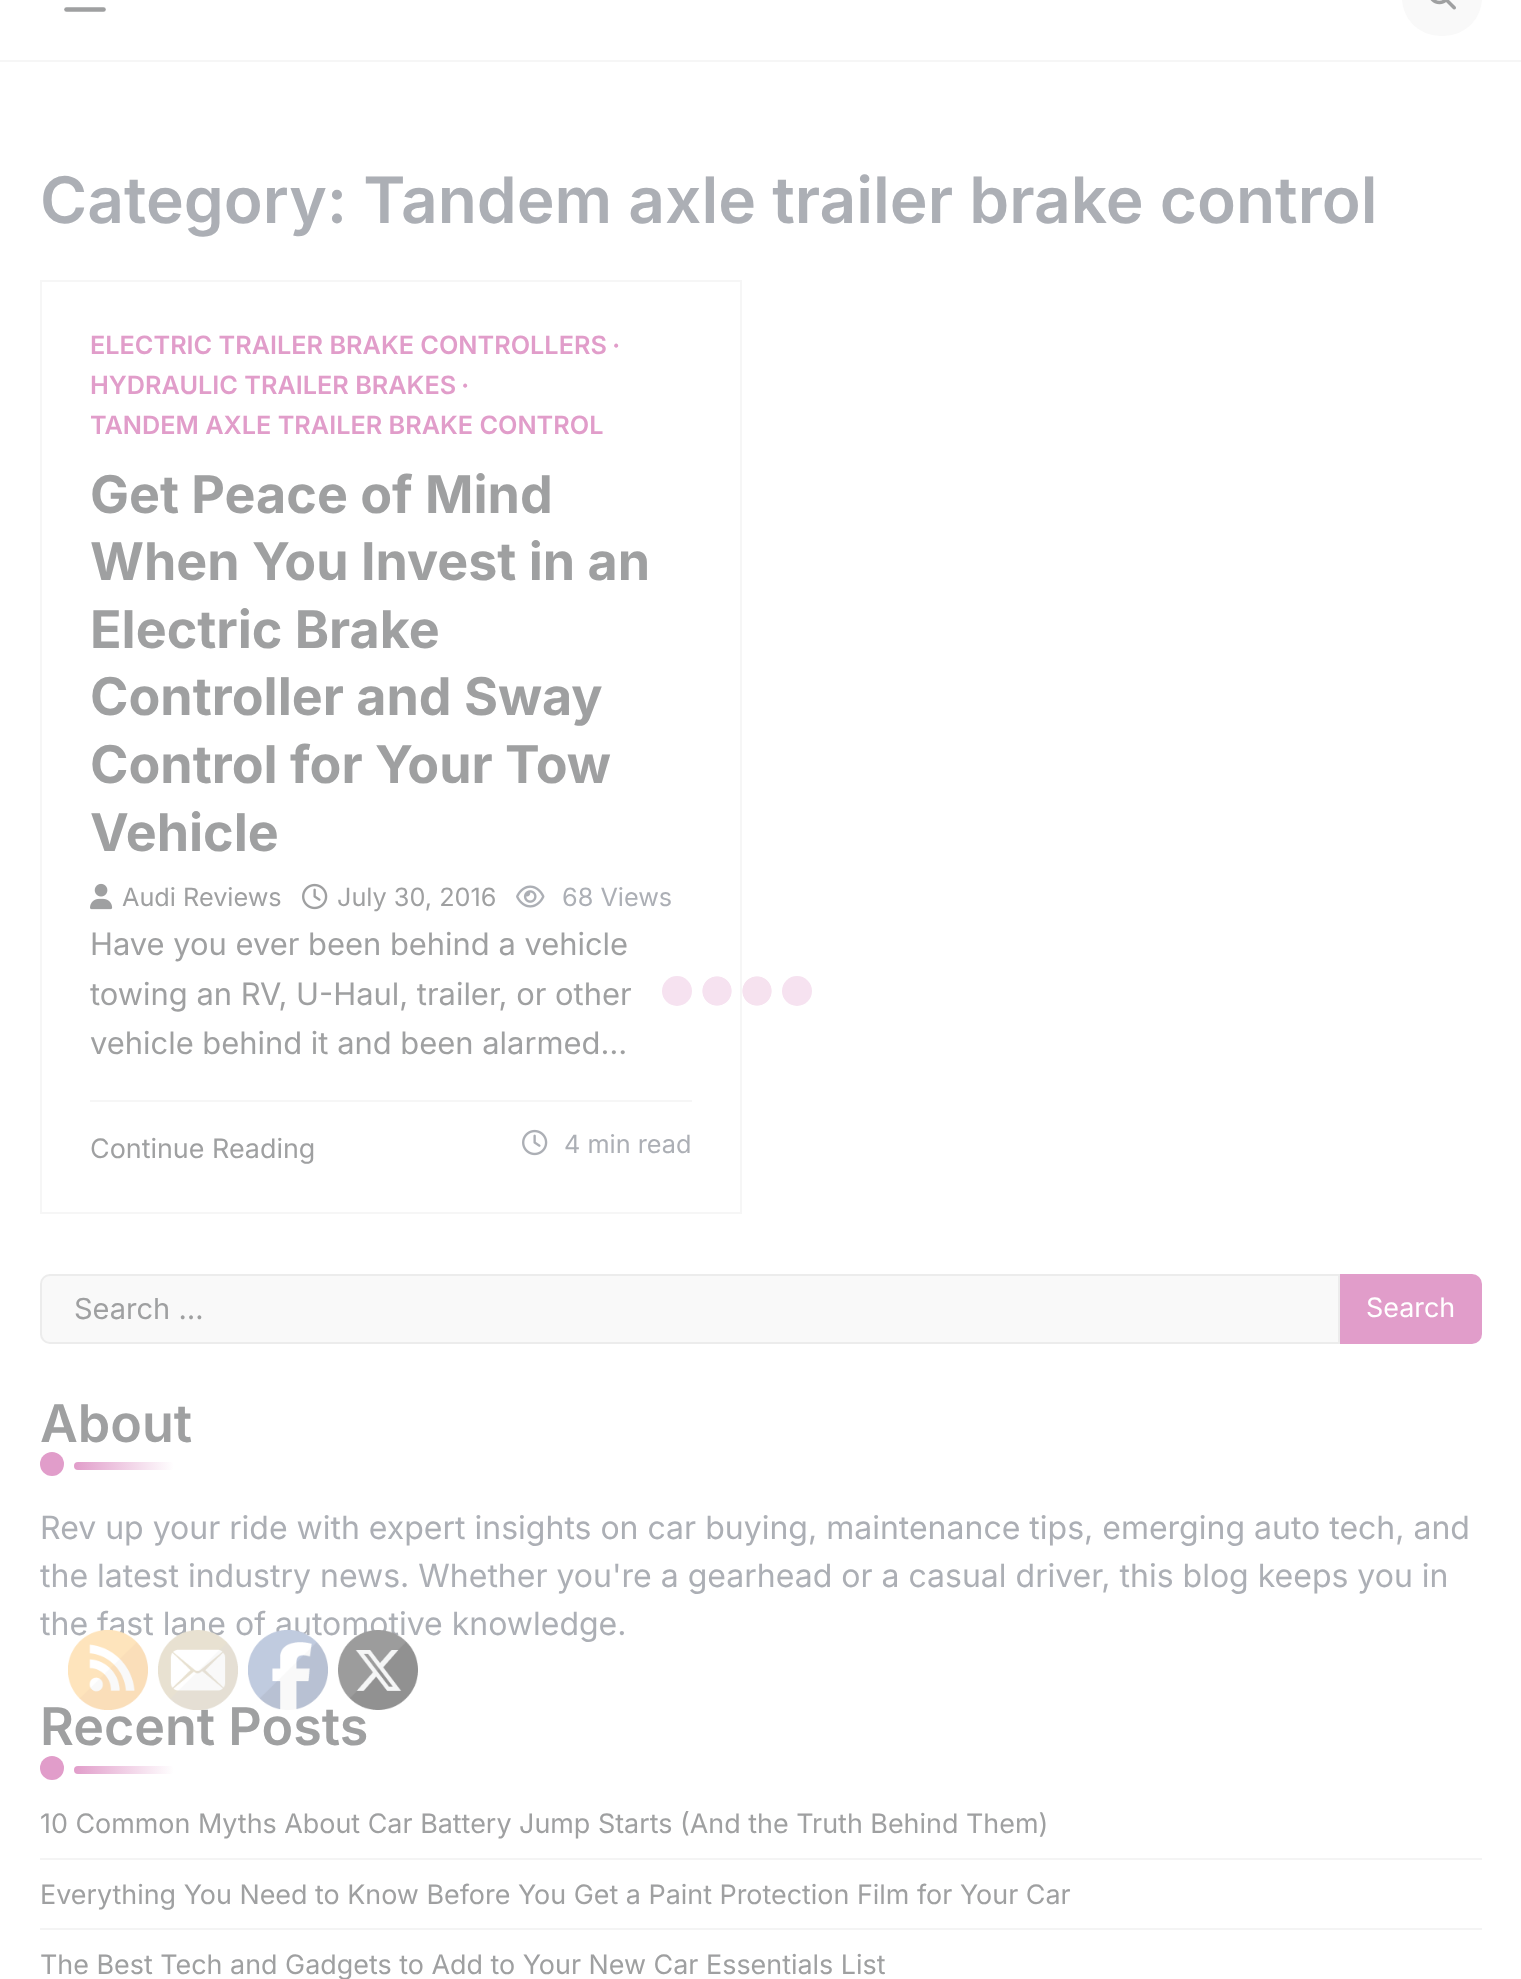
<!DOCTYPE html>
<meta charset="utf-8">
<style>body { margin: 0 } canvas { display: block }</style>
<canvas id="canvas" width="1521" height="1979"></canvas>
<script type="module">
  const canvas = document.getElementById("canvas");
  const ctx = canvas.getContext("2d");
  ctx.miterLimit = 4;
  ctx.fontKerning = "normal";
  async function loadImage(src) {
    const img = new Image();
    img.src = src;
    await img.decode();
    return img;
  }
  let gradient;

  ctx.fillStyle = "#ffffff";
  ctx.fillRect(0, 0, 1521, 1979);
  ctx.fillStyle = "#f6f6f6";
  ctx.fillRect(0, 60, 1521, 2);
  ctx.beginPath();
  ctx.moveTo(66.5, 9.5);
  ctx.lineTo(103.5, 9.5);
  ctx.strokeStyle = "#9fa0a1";
  ctx.lineWidth = 4.6;
  ctx.lineCap = "round";
  ctx.lineJoin = "round";
  ctx.stroke();
  ctx.fillStyle = "#f9f9f9";
  ctx.beginPath();
  ctx.roundRect(1402, -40, 80, 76, 40);
  ctx.fill();
  ctx.drawImage(await loadImage("img1.png"), 1430, 0, 26, 10);
  ctx.font = "600 64px Inter";
  ctx.fillStyle = "#acafb5";
  ctx.fillText("Category: Tandem axle trailer brake control", 40, 223);
  ctx.strokeStyle = "#f6f6f6";
  ctx.lineWidth = 2;
  ctx.lineJoin = "miter";
  ctx.strokeRect(41, 281, 700, 932);
  ctx.font = "600 25.25px Inter";
  ctx.fillStyle = "#e19dca";
  ctx.fillText("ELECTRIC TRAILER BRAKE CONTROLLERS", 90, 354);
  ctx.font = "bold 25.25px Liberation Serif";
  ctx.fillText("∙", 613, 354);
  ctx.font = "600 25.25px Inter";
  ctx.fillText("HYDRAULIC TRAILER BRAKES", 90, 394);
  ctx.font = "bold 25.25px Liberation Serif";
  ctx.fillText("∙", 462, 394);
  ctx.font = "600 25.25px Inter";
  ctx.fillText("TANDEM AXLE TRAILER BRAKE CONTROL", 90, 434);
  ctx.font = "bold 52px Inter";
  ctx.fillStyle = "#9fa0a1";
  ctx.fillText("Get Peace of Mind", 90, 513);
  ctx.fillText("When You Invest in an", 90, 580);
  ctx.fillText("Electric Brake", 90, 648);
  ctx.fillText("Controller and Sway", 90, 715);
  ctx.fillText("Control for Your Tow", 90, 783);
  ctx.fillText("Vehicle", 90, 851);
  ctx.drawImage(await loadImage("img2.png"), 90, 883, 23, 27);
  ctx.font = "25.25px Inter";
  ctx.fillText("Audi Reviews", 122, 906);
  ctx.drawImage(await loadImage("img3.png"), 302, 883, 26, 27);
  ctx.fillText("July 30, 2016", 337, 906);
  ctx.drawImage(await loadImage("img4.png"), 516, 885, 29, 23);
  ctx.fillStyle = "#acafb5";
  ctx.fillText("68 Views", 562, 906);
  ctx.font = "30.9px Inter";
  ctx.fillStyle = "#9fa0a1";
  ctx.fillText("Have you ever been behind a vehicle", 90, 955);
  ctx.fillText("towing an RV, U-Haul, trailer, or other", 90, 1005);
  ctx.fillText("vehicle behind it and been alarmed…", 90, 1054);
  ctx.fillStyle = "#f6f6f6";
  ctx.fillRect(90, 1100, 602, 2);
  ctx.font = "26.9px Inter";
  ctx.fillStyle = "#9fa0a1";
  ctx.fillText("Continue Reading", 90, 1158);
  ctx.drawImage(await loadImage("img5.png"), 522, 1129, 26, 27);
  ctx.font = "25.25px Inter";
  ctx.fillStyle = "#acafb5";
  ctx.fillText("4 min read", 564, 1153);
  ctx.fillStyle = "#f9f9f9";
  ctx.beginPath();
  ctx.roundRect(40, 1274, 1300, 70, [10, 0, 0, 10]);
  ctx.fill();
  ctx.beginPath();
  ctx.roundRect(41, 1275, 1298, 68, [9, 0, 0, 9]);
  ctx.strokeStyle = "rgba(159, 160, 161, 0.15)";
  ctx.stroke();
  ctx.font = "29px Inter";
  ctx.fillStyle = "#9fa0a1";
  ctx.fillText("Search …", 74, 1319);
  ctx.fillStyle = "#e19dca";
  ctx.beginPath();
  ctx.roundRect(1340, 1274, 142, 70, [0, 10, 10, 0]);
  ctx.fill();
  ctx.font = "26.9px Inter";
  ctx.fillStyle = "#ffffff";
  ctx.fillText("Search", 1366, 1317);
  ctx.font = "600 52px Inter";
  ctx.fillStyle = "#9fa0a1";
  ctx.fillText("About", 40, 1442);
  ctx.fillStyle = "#e19dca";
  ctx.beginPath();
  ctx.arc(52, 1464, 12, 0, Math.PI * 2);
  ctx.fill();
  gradient = ctx.createLinearGradient(74, 1466, 174, 1466);
  gradient.addColorStop(0, "#e19dca");
  gradient.addColorStop(1, "#ffffff");
  ctx.fillStyle = gradient;
  ctx.beginPath();
  ctx.roundRect(74, 1462, 100, 8, 4);
  ctx.fill();
  ctx.font = "32px Inter";
  ctx.fillStyle = "#acafb5";
  ctx.fillText("Rev up your ride with expert insights on car buying, maintenance tips, emerging auto tech, and", 40, 1539);
  ctx.fillText("the latest industry news. Whether you're a gearhead or a casual driver, this blog keeps you in", 40, 1587);
  ctx.fillText("the fast lane of automotive knowledge.", 40, 1635);
  ctx.font = "600 52px Inter";
  ctx.fillStyle = "#9fa0a1";
  ctx.fillText("Recent Posts", 40, 1745);
  ctx.fillStyle = "#e19dca";
  ctx.beginPath();
  ctx.arc(52, 1768, 12, 0, Math.PI * 2);
  ctx.fill();
  gradient = ctx.createLinearGradient(74, 1770, 174, 1770);
  gradient.addColorStop(0, "#e19dca");
  gradient.addColorStop(1, "#ffffff");
  ctx.fillStyle = gradient;
  ctx.beginPath();
  ctx.roundRect(74, 1766, 100, 8, 4);
  ctx.fill();
  ctx.fillStyle = "#f4f4f4";
  ctx.fillRect(40, 1858, 1442, 2);
  ctx.font = "26.9px Inter";
  ctx.fillStyle = "#9fa0a1";
  ctx.fillText("10 Common Myths About Car Battery Jump Starts (And the Truth Behind Them)", 40, 1833);
  ctx.fillStyle = "#f4f4f4";
  ctx.fillRect(40, 1928, 1442, 2);
  ctx.fillStyle = "#9fa0a1";
  ctx.fillText("Everything You Need to Know Before You Get a Paint Protection Film for Your Car", 40, 1904);
  ctx.fillText("The Best Tech and Gadgets to Add to Your New Car Essentials List", 40, 1974);
  gradient = ctx.createRadialGradient(757, 991, 0, 757, 991, 15);
  gradient.addColorStop(0.95, "#f6e2ef");
  gradient.addColorStop(1, "#ffffff");
  ctx.fillStyle = gradient;
  ctx.fillRect(742, 976, 30, 30);
  gradient = ctx.createRadialGradient(717, 991, 0, 717, 991, 15);
  gradient.addColorStop(0.95, "#f6e2f0");
  gradient.addColorStop(1, "#ffffff");
  ctx.fillStyle = gradient;
  ctx.fillRect(702, 976, 30, 30);
  ctx.fillStyle = "#f6e2f0";
  ctx.beginPath();
  ctx.arc(677, 991, 15, 0, Math.PI * 2);
  ctx.fill();
  ctx.beginPath();
  ctx.arc(797, 991, 15, 0, Math.PI * 2);
  ctx.fill();
  ctx.drawImage(await loadImage("img6.png"), 68, 1630, 80, 80);
  ctx.drawImage(await loadImage("img7.png"), 158, 1630, 80, 80);
  ctx.drawImage(await loadImage("img8.png"), 248, 1630, 80, 80);
  ctx.drawImage(await loadImage("img9.png"), 338, 1630, 80, 80);
</script>
